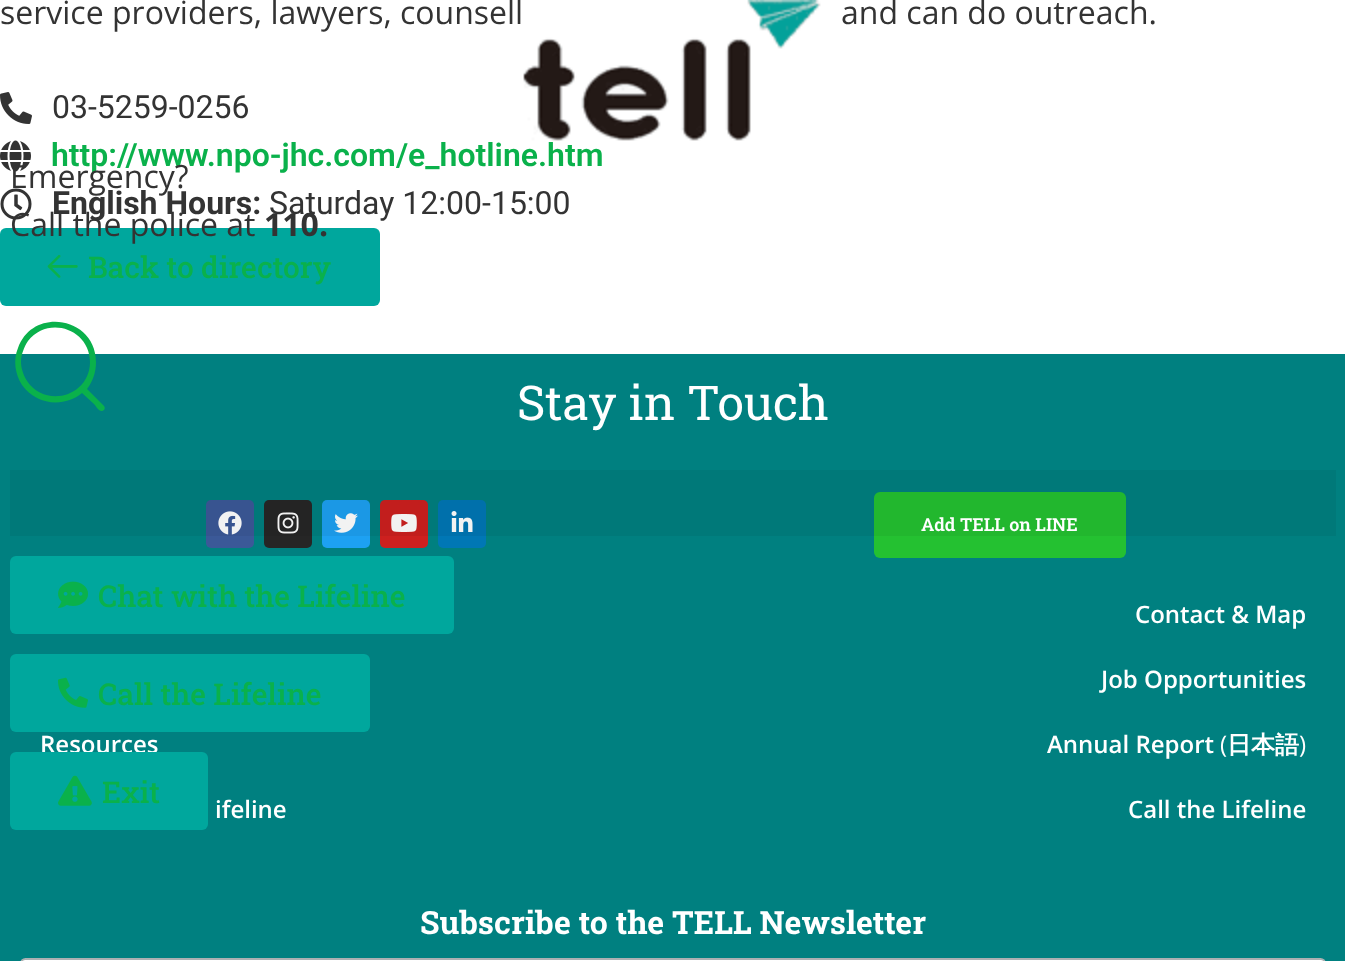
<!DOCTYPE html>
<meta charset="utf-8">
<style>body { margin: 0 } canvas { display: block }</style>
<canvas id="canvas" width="1345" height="961"></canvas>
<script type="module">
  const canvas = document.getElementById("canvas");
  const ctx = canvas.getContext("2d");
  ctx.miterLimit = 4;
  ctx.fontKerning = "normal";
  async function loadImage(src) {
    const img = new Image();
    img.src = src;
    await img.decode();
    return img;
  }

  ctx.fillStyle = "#ffffff";
  ctx.fillRect(0, 0, 1345, 961);
  ctx.font = "32px Open Sans";
  ctx.fillStyle = "#333333";
  ctx.fillText("service providers, lawyers, counsell", 0, 24);
  ctx.fillText("and can do outreach.", 841, 24);
  ctx.drawImage(await loadImage("img1.png"), 0, 92, 32, 32);
  ctx.font = "32px Roboto";
  ctx.fillText("03-5259-0256", 52, 118);
  ctx.drawImage(await loadImage("img2.png"), 0, 140, 31, 32);
  ctx.font = "600 32px Roboto";
  ctx.fillStyle = "#0ab14b";
  ctx.fillText("http://www.npo-jhc.com/e_hotline.htm", 51, 166);
  ctx.drawImage(await loadImage("img3.png"), 0, 188, 32, 32);
  ctx.font = "bold 32px Roboto";
  ctx.fillStyle = "#333333";
  ctx.fillText("English Hours:", 52, 214);
  ctx.font = "32px Roboto";
  ctx.fillText("Saturday 12:00-15:00", 269, 214);
  ctx.fillStyle = "#00a79d";
  ctx.beginPath();
  ctx.roundRect(0, 228, 380, 78, 6);
  ctx.fill();
  ctx.drawImage(await loadImage("img4.png"), 47, 254, 31, 24);
  ctx.font = "500 30px Roboto Slab";
  ctx.fillStyle = "#0ab14b";
  ctx.fillText("Back to directory", 88, 278);
  ctx.drawImage(await loadImage("img5.png"), 523, 0, 301, 141);
  ctx.font = "32px Open Sans";
  ctx.fillStyle = "#333333";
  ctx.fillText("Emergency?", 10, 188);
  ctx.fillText("Call the police at", 10, 236);
  ctx.font = "bold 32px Open Sans";
  ctx.fillText("110.", 264, 236);
  ctx.fillStyle = "#008080";
  ctx.fillRect(0, 354, 1345, 607);
  ctx.fillStyle = "#0ab14b";
  ctx.beginPath();
  ctx.moveTo(104, 406);
  ctx.lineTo(87, 389);
  ctx.bezierCurveTo(93, 381, 96, 372, 96, 362);
  ctx.bezierCurveTo(96, 317, 33, 306, 18, 348);
  ctx.bezierCurveTo(13, 360, 15, 374, 22, 385);
  ctx.bezierCurveTo(36, 405, 64, 408, 82, 393);
  ctx.lineTo(94, 404);
  ctx.bezierCurveTo(96, 406, 100, 414, 104, 410);
  ctx.bezierCurveTo(105, 409, 105, 407, 104, 406);
  ctx.closePath();
  ctx.moveTo(21, 362);
  ctx.bezierCurveTo(21, 355, 24, 347, 28, 341);
  ctx.bezierCurveTo(48, 315, 90, 329, 90, 362);
  ctx.bezierCurveTo(90, 396, 46, 409, 27, 381);
  ctx.bezierCurveTo(24, 376, 21, 369, 21, 362);
  ctx.closePath();
  ctx.fill();
  ctx.fillStyle = "#3b5998";
  ctx.beginPath();
  ctx.roundRect(206, 500, 48, 48, 5);
  ctx.fill();
  ctx.drawImage(await loadImage("img9.png"), 218, 511, 24, 24);
  ctx.fillStyle = "#262626";
  ctx.beginPath();
  ctx.roundRect(264, 500, 48, 48, 5);
  ctx.fill();
  ctx.drawImage(await loadImage("img10.png"), 277, 512, 22, 22);
  ctx.fillStyle = "#1da1f2";
  ctx.beginPath();
  ctx.roundRect(322, 500, 48, 48, 5);
  ctx.fill();
  ctx.drawImage(await loadImage("img11.png"), 334, 513, 24, 20);
  ctx.fillStyle = "#cd201f";
  ctx.beginPath();
  ctx.roundRect(380, 500, 48, 48, 5);
  ctx.fill();
  ctx.drawImage(await loadImage("img12.png"), 391, 514, 26, 18);
  ctx.fillStyle = "#0077b5";
  ctx.beginPath();
  ctx.roundRect(438, 500, 48, 48, 5);
  ctx.fill();
  ctx.drawImage(await loadImage("img13.png"), 451, 511, 22, 21);
  ctx.fillStyle = "#24c131";
  ctx.beginPath();
  ctx.roundRect(874, 492, 252, 66, 6);
  ctx.fill();
  ctx.fillStyle = "rgba(0, 0, 0, 0.05)";
  ctx.fillRect(10, 470, 1326, 66);
  ctx.fillStyle = "#00a79d";
  ctx.beginPath();
  ctx.roundRect(10, 556, 444, 78, 6);
  ctx.fill();
  ctx.drawImage(await loadImage("img6.png"), 58, 581, 30, 27);
  ctx.font = "500 30px Roboto Slab";
  ctx.fillStyle = "#0ab14b";
  ctx.fillText("Chat with the Lifeline", 98, 607);
  ctx.fillStyle = "#00a79d";
  ctx.beginPath();
  ctx.roundRect(10, 654, 360, 78, 6);
  ctx.fill();
  ctx.drawImage(await loadImage("img7.png"), 58, 677, 30, 31);
  ctx.fillStyle = "#0ab14b";
  ctx.fillText("Call the Lifeline", 98, 705);
  ctx.font = "600 24px Open Sans";
  ctx.fillStyle = "#ffffff";
  ctx.fillText("Resources", 40, 753);
  ctx.fillStyle = "#00a79d";
  ctx.beginPath();
  ctx.roundRect(10, 752, 198, 78, 6);
  ctx.fill();
  ctx.drawImage(await loadImage("img8.png"), 58, 775, 34, 31);
  ctx.font = "500 30px Roboto Slab";
  ctx.fillStyle = "#0ab14b";
  ctx.fillText("Exit", 102, 803);
  ctx.font = "48px Roboto Slab";
  ctx.fillStyle = "#ffffff";
  ctx.fillText("Stay in Touch", 517, 420);
  ctx.font = "600 18px Roboto Slab";
  ctx.fillText("Add TELL on LINE", 921, 531);
  ctx.font = "600 24px Open Sans";
  ctx.fillText("ifeline", 215, 818);
  ctx.fillText("Contact & Map", 1135, 623);
  ctx.fillText("Job Opportunities", 1101, 688);
  ctx.fillText("Annual Report", 1047, 753);
  ctx.font = "24px Open Sans";
  ctx.fillText("(", 1220, 753);
  ctx.font = "bold 24px WenQuanYi Zen Hei";
  ctx.fillText("日本語", 1227, 753);
  ctx.font = "24px Open Sans";
  ctx.fillText(")", 1299, 753);
  ctx.font = "600 24px Open Sans";
  ctx.fillText("Call the Lifeline", 1128, 818);
  ctx.font = "bold 32px Roboto Slab";
  ctx.fillText("Subscribe to the TELL Newsletter", 420, 934);
  ctx.beginPath();
  ctx.roundRect(21, 959, 1304, 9, 5);
  ctx.fill();
  ctx.strokeStyle = "#abb0b2";
  ctx.lineWidth = 2;
  ctx.stroke();
</script>
